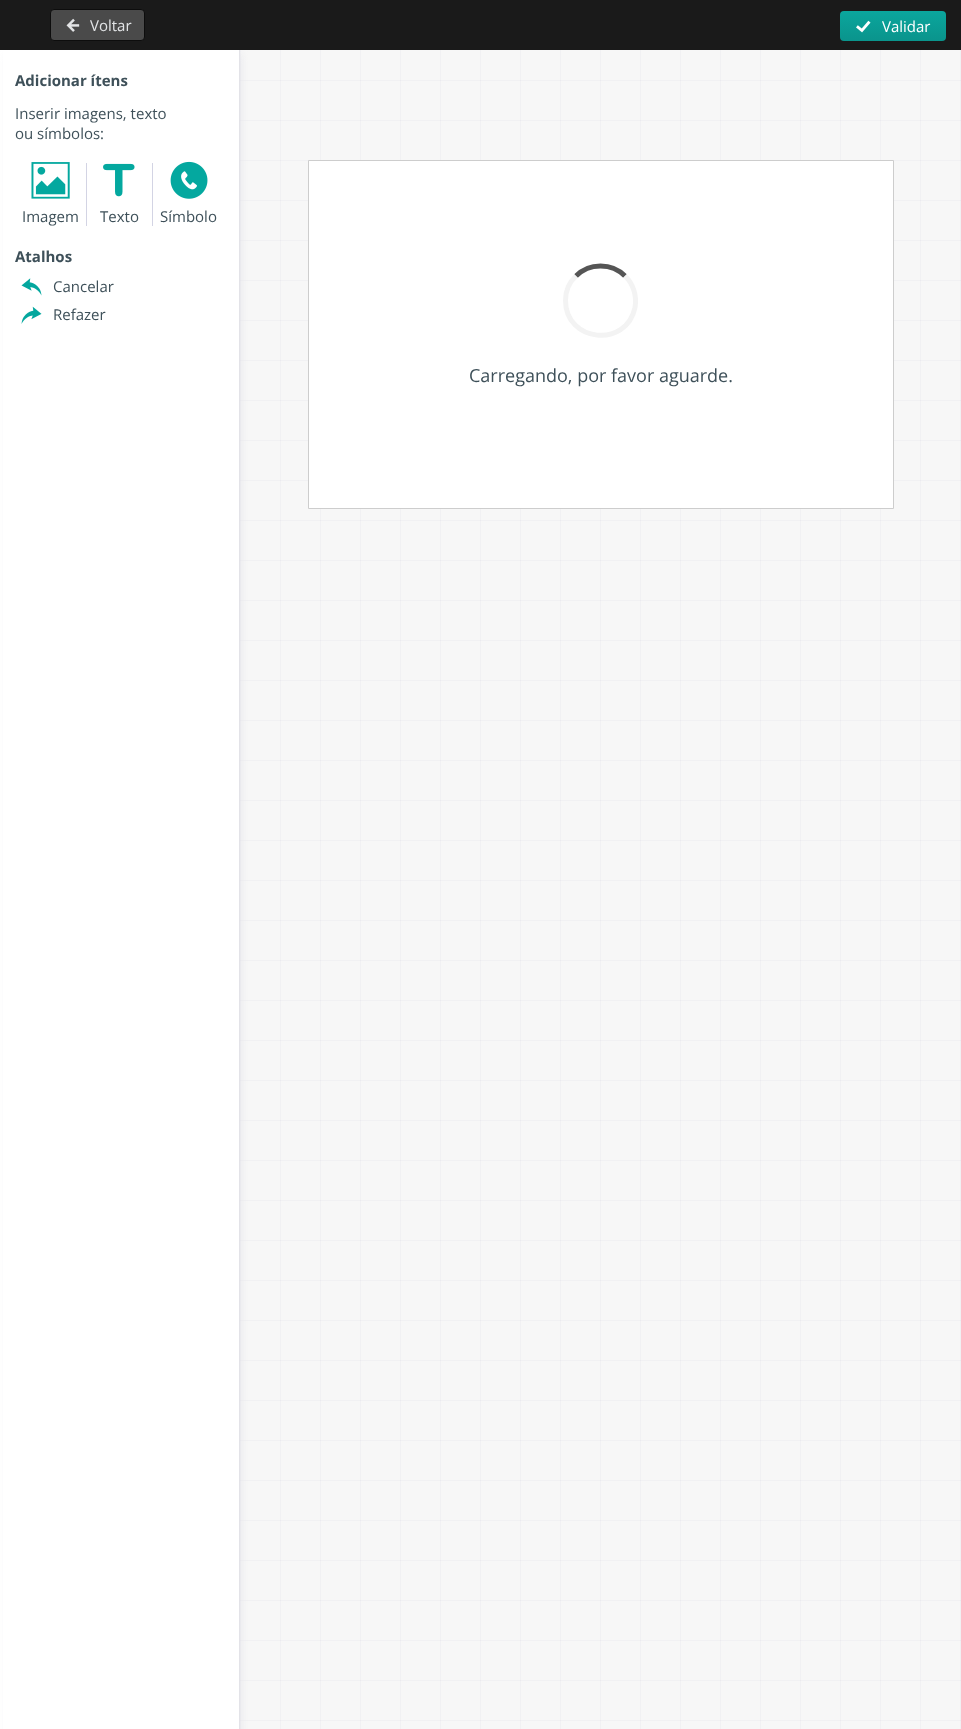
<!DOCTYPE html>
<meta charset="utf-8">
<style>body { margin: 0 } canvas { display: block }</style>
<canvas id="canvas" width="961" height="1729"></canvas>
<script type="module">
  const canvas = document.getElementById("canvas");
  const ctx = canvas.getContext("2d");
  ctx.miterLimit = 4;
  ctx.fontKerning = "normal";
  async function loadImage(src) {
    const img = new Image();
    img.src = src;
    await img.decode();
    return img;
  }
  let gradient;

  ctx.fillStyle = "#ffffff";
  ctx.fillRect(0, 0, 961, 1729);
  ctx.drawImage(await loadImage("img1.png"), 240, 50, 721, 1679);
  ctx.fillStyle = "#e3e3e8";
  ctx.filter = "blur(4px)";
  ctx.beginPath();
  ctx.rect(8, 54, 232, 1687);
  ctx.fill();
  ctx.filter = "none";
  ctx.fillStyle = "#1a1a1a";
  ctx.fillRect(0, 0, 961, 50);
  ctx.fillStyle = "#4a4a4a";
  ctx.beginPath();
  ctx.roundRect(50.5, 9.5, 94, 31, 3.5);
  ctx.fill();
  ctx.strokeStyle = "#0d0d0d";
  ctx.stroke();
  ctx.drawImage(await loadImage("img2.png"), 66, 18, 14, 14);
  ctx.font = "15px Open Sans";
  ctx.fillStyle = "#e2e4e6";
  ctx.fillText("Voltar", 90, 31);
  gradient = ctx.createLinearGradient(893, 11, 893, 41);
  gradient.addColorStop(0, "#0ba69d");
  gradient.addColorStop(1, "#0a948c");
  ctx.fillStyle = gradient;
  ctx.beginPath();
  ctx.roundRect(840, 11, 106, 30, 4);
  ctx.fill();
  ctx.drawImage(await loadImage("img3.png"), 856, 20, 15, 13);
  ctx.fillStyle = "#ffffff";
  ctx.fillText("Validar", 882, 32);
  ctx.fillRect(3, 50, 236, 1679);
  ctx.fillStyle = "#e3e3e8";
  ctx.fillRect(239, 50, 1, 1679);
  ctx.font = "bold 15px Open Sans";
  ctx.fillStyle = "#3e5059";
  ctx.fillText("Adicionar ítens", 15, 86);
  ctx.font = "15px Open Sans";
  ctx.fillText("Inserir imagens, texto", 15, 119);
  ctx.fillText("ou símbolos:", 15, 139);
  ctx.drawImage(await loadImage("img4.png"), 31, 162, 39, 37);
  ctx.fillText("Imagem", 22, 222);
  ctx.fillStyle = "#d3d4e4";
  ctx.fillRect(152, 163, 1, 63);
  ctx.fillRect(86, 163, 1, 63);
  ctx.drawImage(await loadImage("img5.png"), 103, 163, 32, 34);
  ctx.fillStyle = "#3e5059";
  ctx.fillText("Texto", 100, 222);
  ctx.drawImage(await loadImage("img6.png"), 170, 161, 38, 38);
  ctx.fillText("Símbolo", 160, 222);
  ctx.font = "bold 15px Open Sans";
  ctx.fillText("Atalhos", 15, 262);
  ctx.drawImage(await loadImage("img7.png"), 21, 278, 21, 18);
  ctx.font = "15px Open Sans";
  ctx.fillText("Cancelar", 53, 292);
  ctx.drawImage(await loadImage("img8.png"), 21, 306, 21, 18);
  ctx.fillText("Refazer", 53, 320);
  ctx.fillStyle = "#ffffff";
  ctx.beginPath();
  ctx.rect(308.5, 160.5, 585, 348);
  ctx.fill();
  ctx.strokeStyle = "#cdcdcd";
  ctx.stroke();
  ctx.beginPath();
  ctx.moveTo(576, 276);
  ctx.bezierCurveTo(589, 262.5, 612, 262.5, 625, 276);
  ctx.strokeStyle = "#555555";
  ctx.lineWidth = 5;
  ctx.stroke();
  ctx.beginPath();
  ctx.moveTo(625, 276);
  ctx.bezierCurveTo(633.5, 284, 637, 296, 635, 307.5);
  ctx.bezierCurveTo(626.5, 348.5, 565.5, 342.5, 565.5, 300.5);
  ctx.bezierCurveTo(565.5, 291.5, 569, 282.5, 576, 276);
  ctx.strokeStyle = "#f3f3f3";
  ctx.stroke();
  ctx.font = "18px Open Sans";
  ctx.fillStyle = "#3e5059";
  ctx.fillText("Carregando, por favor aguarde.", 469, 382);
</script>
